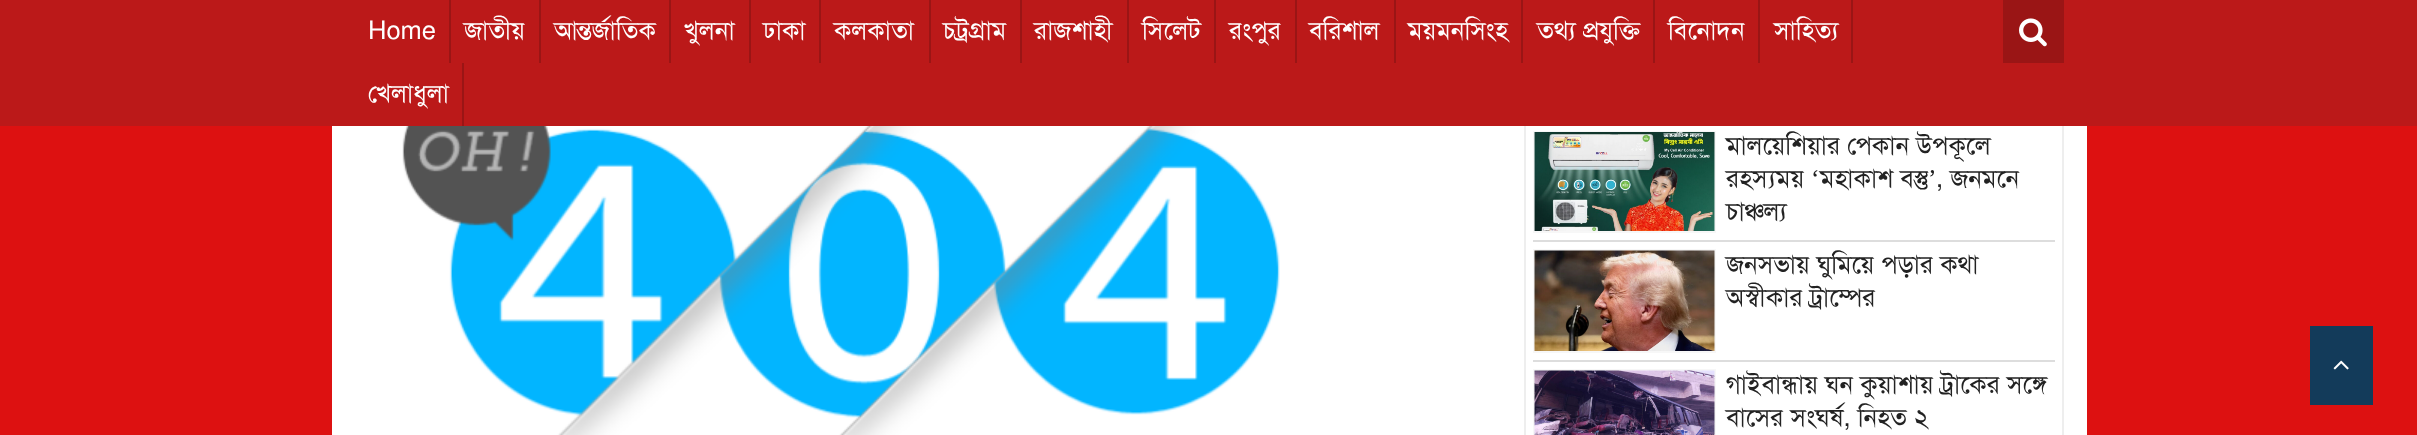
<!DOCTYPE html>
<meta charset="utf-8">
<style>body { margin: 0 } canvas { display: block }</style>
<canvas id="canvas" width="2417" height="435"></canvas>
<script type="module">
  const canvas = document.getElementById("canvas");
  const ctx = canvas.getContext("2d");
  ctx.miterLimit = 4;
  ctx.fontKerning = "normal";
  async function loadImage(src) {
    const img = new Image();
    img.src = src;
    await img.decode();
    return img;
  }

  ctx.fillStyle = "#dd1111";
  ctx.fillRect(0, 0, 2417, 435);
  ctx.fillStyle = "#ffffff";
  ctx.fillRect(332, 126, 1755, 309);
  ctx.strokeStyle = "#eeeeee";
  ctx.lineWidth = 2;
  ctx.strokeRect(1525, 115, 538, 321);
  ctx.fillStyle = "#bb1919";
  ctx.fillRect(0, 0, 2417, 126);
  ctx.fillStyle = "#9a1515";
  ctx.fillRect(449, 0, 2, 63);
  ctx.font = "25.5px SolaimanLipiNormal";
  ctx.fillStyle = "#ffffff";
  ctx.fillText("Home", 368, 39);
  ctx.fillStyle = "#9a1515";
  ctx.fillRect(539, 0, 2, 63);
  ctx.fillStyle = "#ffffff";
  ctx.fillText("জাতীয়", 464, 39);
  ctx.fillStyle = "#9a1515";
  ctx.fillRect(669, 0, 2, 63);
  ctx.fillStyle = "#ffffff";
  ctx.fillText("আন্তর্জাতিক", 554, 39);
  ctx.fillStyle = "#9a1515";
  ctx.fillRect(749, 0, 2, 63);
  ctx.fillStyle = "#ffffff";
  ctx.fillText("খুলনা", 684, 39);
  ctx.fillStyle = "#9a1515";
  ctx.fillRect(819, 0, 2, 63);
  ctx.fillStyle = "#ffffff";
  ctx.fillText("ঢাকা", 763, 39);
  ctx.fillStyle = "#9a1515";
  ctx.fillRect(929, 0, 2, 63);
  ctx.fillStyle = "#ffffff";
  ctx.fillText("কলকাতা", 834, 39);
  ctx.fillStyle = "#9a1515";
  ctx.fillRect(1020, 0, 2, 63);
  ctx.fillStyle = "#ffffff";
  ctx.fillText("চট্রগ্রাম", 943, 39);
  ctx.fillStyle = "#9a1515";
  ctx.fillRect(1127, 0, 2, 63);
  ctx.fillStyle = "#ffffff";
  ctx.fillText("রাজশাহী", 1034, 39);
  ctx.fillStyle = "#9a1515";
  ctx.fillRect(1214, 0, 2, 63);
  ctx.fillStyle = "#ffffff";
  ctx.fillText("সিলেট", 1142, 39);
  ctx.fillStyle = "#9a1515";
  ctx.fillRect(1295, 0, 2, 63);
  ctx.fillStyle = "#ffffff";
  ctx.fillText("রংপুর", 1229, 39);
  ctx.fillStyle = "#9a1515";
  ctx.fillRect(1394, 0, 2, 63);
  ctx.fillStyle = "#ffffff";
  ctx.fillText("বরিশাল", 1309, 39);
  ctx.fillStyle = "#9a1515";
  ctx.fillRect(1521, 0, 2, 63);
  ctx.fillStyle = "#ffffff";
  ctx.fillText("ময়মনসিংহ", 1408, 39);
  ctx.fillStyle = "#9a1515";
  ctx.fillRect(1653, 0, 2, 63);
  ctx.fillStyle = "#ffffff";
  ctx.fillText("তথ্য প্রযুক্তি", 1537, 39);
  ctx.fillStyle = "#9a1515";
  ctx.fillRect(1758, 0, 2, 63);
  ctx.fillStyle = "#ffffff";
  ctx.fillText("বিনোদন", 1668, 39);
  ctx.fillStyle = "#9a1515";
  ctx.fillRect(1851, 0, 2, 63);
  ctx.fillStyle = "#ffffff";
  ctx.fillText("সাহিত্য", 1774, 39);
  ctx.fillStyle = "#9a1515";
  ctx.fillRect(462, 63, 2, 63);
  ctx.fillStyle = "#ffffff";
  ctx.fillText("খেলাধুলা", 368, 102);
  ctx.fillStyle = "#9a1515";
  ctx.fillRect(2003, 0, 61, 63);
  ctx.drawImage(await loadImage("img1.png"), 2019, 18, 28, 29);
  ctx.drawImage(await loadImage("img2.png"), 402, 126, 878, 309);
  ctx.fillStyle = "#dddddd";
  ctx.fillRect(1533, 240, 522, 2);
  ctx.strokeStyle = "#f7f7f7";
  ctx.strokeRect(1534, 132, 181, 100);
  ctx.drawImage(await loadImage("img3.png"), 1534, 132, 181, 99);
  ctx.fillStyle = "#222222";
  ctx.fillText("মালয়েশিয়ার পেকান উপকূলে", 1726, 154);
  ctx.fillText("রহস্যময়", 1726, 187);
  ctx.font = "25.5px Liberation Serif";
  ctx.fillText("‘", 1811, 187);
  ctx.font = "25.5px SolaimanLipiNormal";
  ctx.fillText("মহাকাশ বস্তু", 1820, 187);
  ctx.font = "25.5px Liberation Serif";
  ctx.fillText("’", 1928, 187);
  ctx.font = "25.5px SolaimanLipiNormal";
  ctx.fillText(", জনমনে", 1936, 187);
  ctx.fillText("চাঞ্চল্য", 1726, 220);
  ctx.fillStyle = "#dddddd";
  ctx.fillRect(1533, 360, 522, 2);
  ctx.strokeRect(1534, 250, 181, 102);
  ctx.drawImage(await loadImage("img4.png"), 1534, 250, 181, 101);
  ctx.fillStyle = "#222222";
  ctx.fillText("জনসভায় ঘুমিয়ে পড়ার কথা", 1726, 273);
  ctx.fillText("অস্বীকার ট্রাম্পের", 1726, 306);
  ctx.strokeRect(1534, 370, 181, 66);
  ctx.drawImage(await loadImage("img5.png"), 1534, 370, 181, 65);
  ctx.fillText("গাইবান্ধায় ঘন কুয়াশায় ট্রাকের সঙ্গে", 1726, 393);
  ctx.fillText("বাসের সংঘর্ষ, নিহত ২", 1726, 426);
  ctx.fillStyle = "#133b5a";
  ctx.fillRect(2310, 326, 63, 79);
  ctx.drawImage(await loadImage("img6.png"), 2333, 360, 16, 10);
</script>
